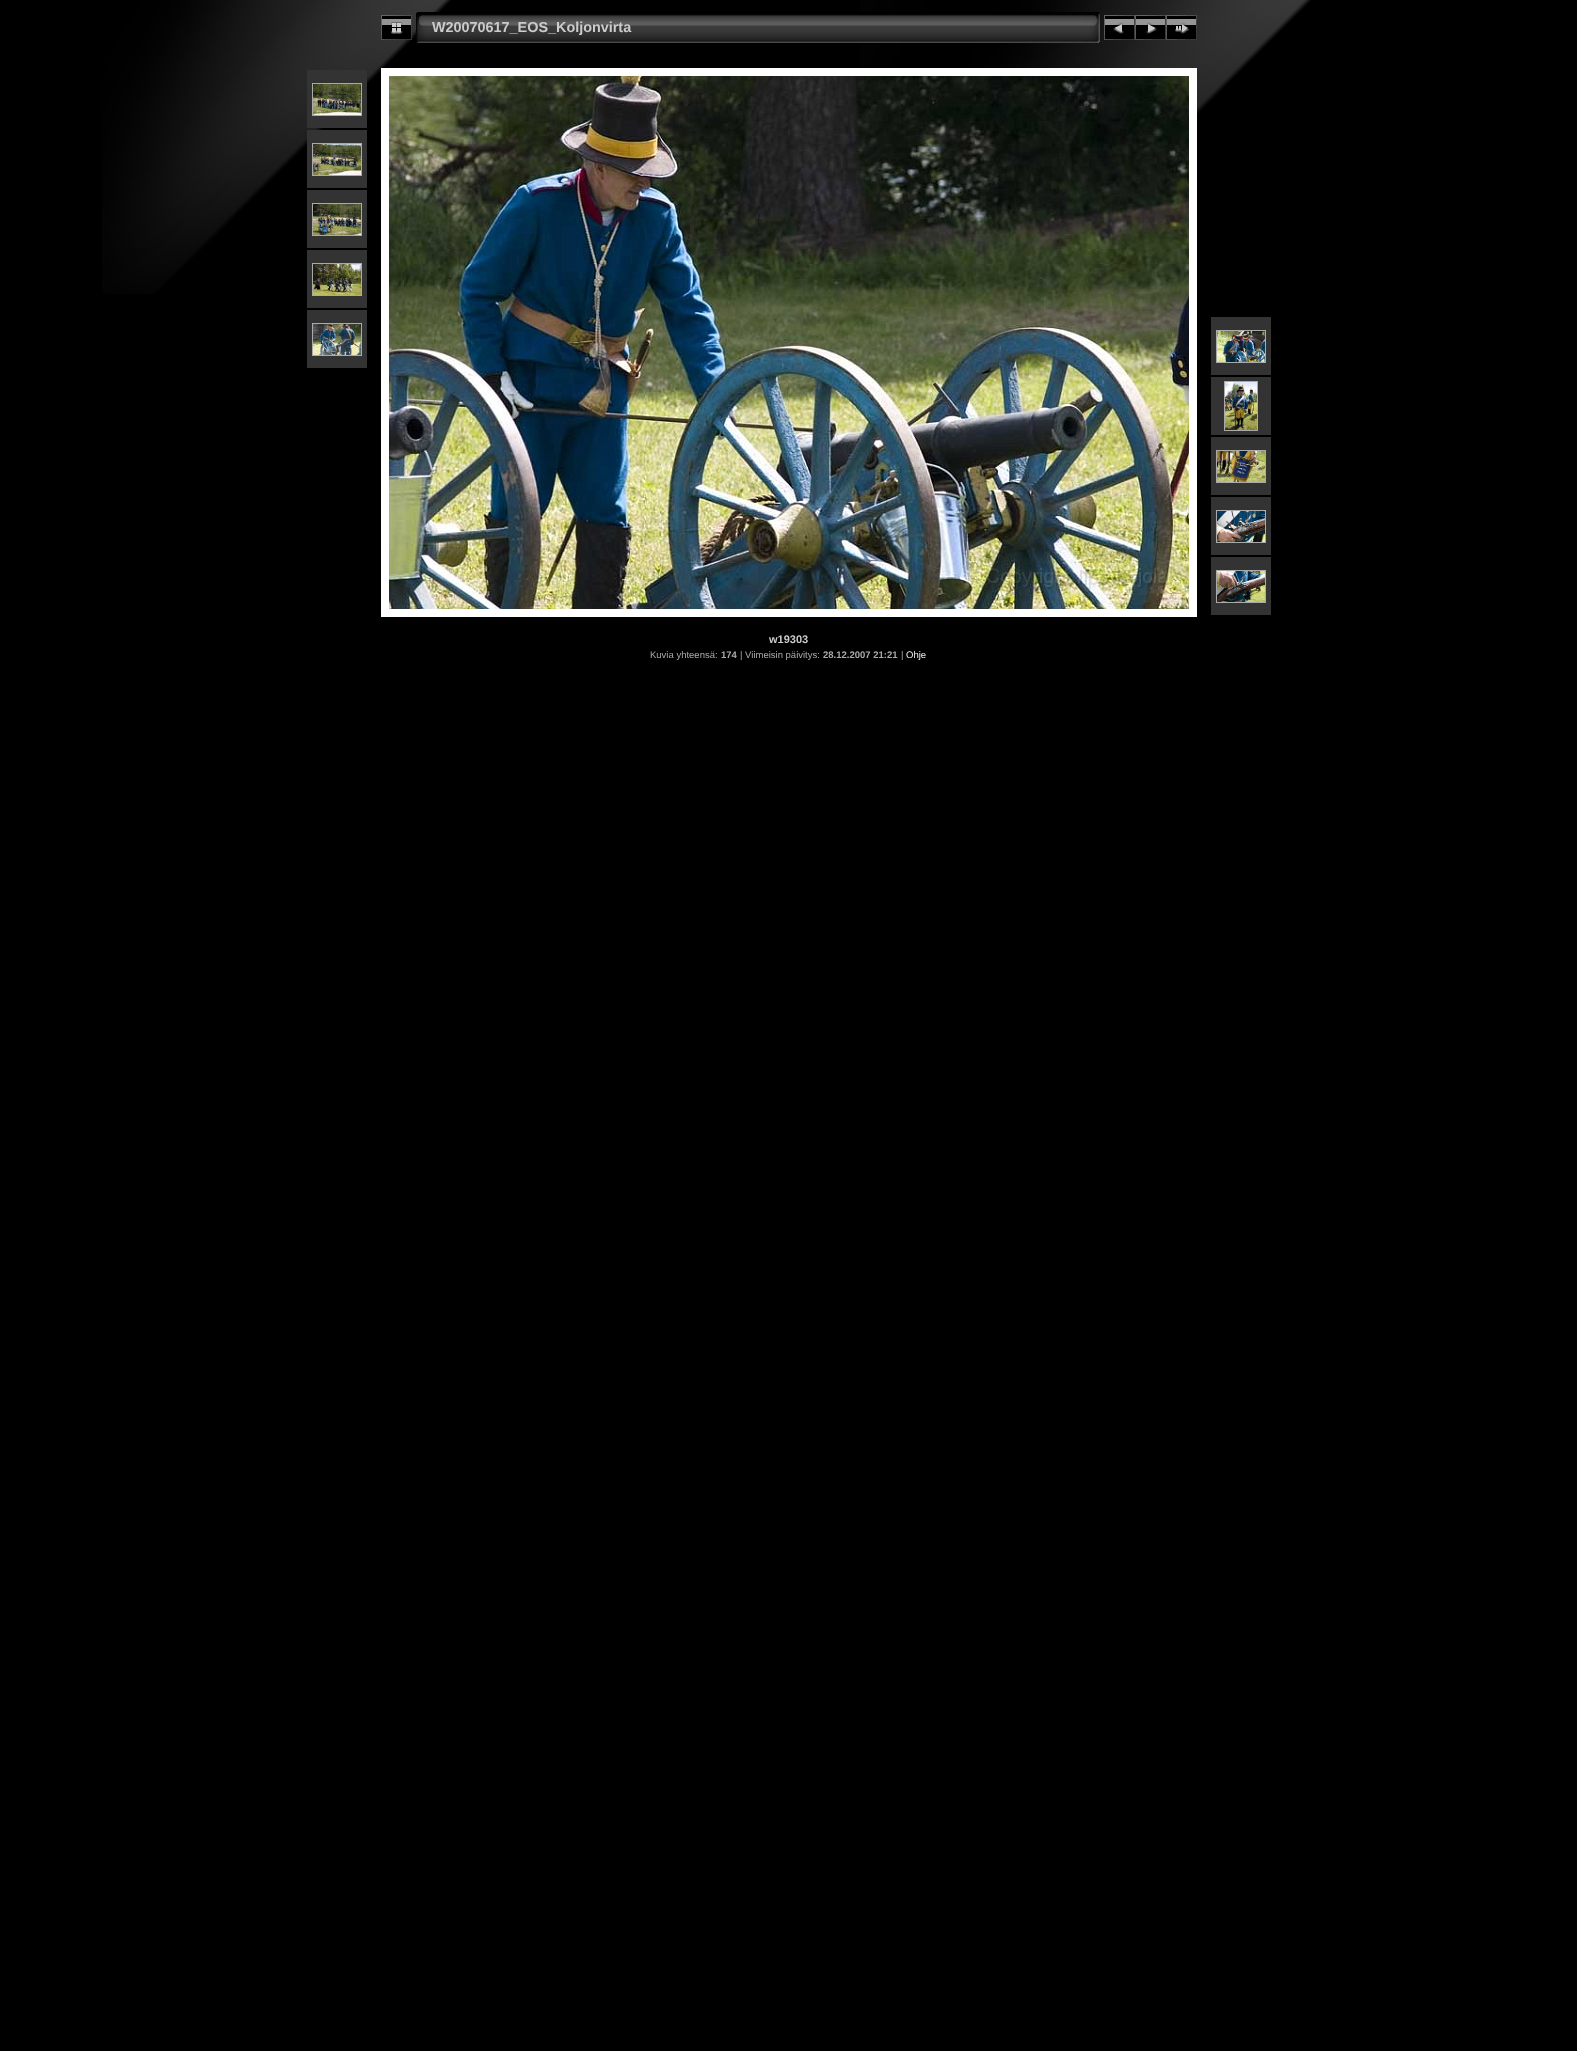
<!DOCTYPE html>
<meta charset="utf-8">
<style>body { margin: 0 } canvas { display: block }</style>
<canvas id="canvas" width="1577" height="2051"></canvas>
<script type="module">
  const canvas = document.getElementById("canvas");
  const ctx = canvas.getContext("2d");
  ctx.miterLimit = 4;
  ctx.fontKerning = "normal";
  async function loadImage(src) {
    const img = new Image();
    img.src = src;
    await img.decode();
    return img;
  }

  ctx.fillStyle = "#000000";
  ctx.fillRect(0, 0, 1577, 2051);
  ctx.drawImage(await loadImage("img1.png"), 102, 0, 1209, 294);
  ctx.drawImage(await loadImage("img2.png"), 381, 15, 31, 25);
  ctx.drawImage(await loadImage("img3.png"), 416, 12, 16, 31);
  ctx.drawImage(await loadImage("img4.png"), 432, 12, 652, 31);
  ctx.font = "bold 14.4px Liberation Sans";
  ctx.fillStyle = "#cccccc";
  ctx.fillText("W20070617_EOS_Koljonvirta", 432, 32);
  ctx.drawImage(await loadImage("img5.png"), 1084, 12, 16, 31);
  ctx.drawImage(await loadImage("img6.png"), 1104, 15, 31, 25);
  ctx.drawImage(await loadImage("img7.png"), 1135, 15, 31, 25);
  ctx.drawImage(await loadImage("img8.png"), 1166, 15, 31, 25);
  ctx.fillStyle = "#333333";
  ctx.fillRect(307, 70, 60, 58);
  ctx.strokeStyle = "#aaaaaa";
  ctx.strokeRect(312.5, 83.5, 49, 32);
  ctx.drawImage(await loadImage("img9.png"), 313, 84, 48, 31);
  ctx.fillRect(307, 130, 60, 58);
  ctx.strokeRect(312.5, 143.5, 49, 32);
  ctx.drawImage(await loadImage("img10.png"), 313, 144, 48, 31);
  ctx.fillRect(307, 190, 60, 58);
  ctx.strokeRect(312.5, 203.5, 49, 32);
  ctx.drawImage(await loadImage("img11.png"), 313, 204, 48, 31);
  ctx.fillRect(307, 250, 60, 58);
  ctx.strokeRect(312.5, 263.5, 49, 32);
  ctx.drawImage(await loadImage("img12.png"), 313, 264, 48, 31);
  ctx.fillRect(307, 310, 60, 58);
  ctx.strokeRect(312.5, 323.5, 49, 32);
  ctx.drawImage(await loadImage("img13.png"), 313, 324, 48, 31);
  ctx.strokeStyle = "#ffffff";
  ctx.lineWidth = 8;
  ctx.strokeRect(385, 72, 808, 541);
  ctx.drawImage(await loadImage("img14.png"), 389, 76, 800, 533);
  ctx.fillRect(1211, 317, 60, 58);
  ctx.strokeStyle = "#aaaaaa";
  ctx.lineWidth = 1;
  ctx.strokeRect(1216.5, 330.5, 49, 32);
  ctx.drawImage(await loadImage("img15.png"), 1217, 331, 48, 31);
  ctx.fillRect(1211, 377, 60, 58);
  ctx.strokeRect(1224.5, 381.5, 33, 49);
  ctx.drawImage(await loadImage("img16.png"), 1225, 382, 32, 48);
  ctx.fillRect(1211, 437, 60, 58);
  ctx.strokeRect(1216.5, 450.5, 49, 32);
  ctx.drawImage(await loadImage("img17.png"), 1217, 451, 48, 31);
  ctx.fillRect(1211, 497, 60, 58);
  ctx.strokeRect(1216.5, 510.5, 49, 32);
  ctx.drawImage(await loadImage("img18.png"), 1217, 511, 48, 31);
  ctx.fillRect(1211, 557, 60, 58);
  ctx.strokeRect(1216.5, 570.5, 49, 32);
  ctx.drawImage(await loadImage("img19.png"), 1217, 571, 48, 31);
  ctx.font = "bold 11px Liberation Sans";
  ctx.fillStyle = "#cccccc";
  ctx.fillText("w19303", 769, 643);
  ctx.font = "9.5px Liberation Sans";
  ctx.fillStyle = "#aaaaaa";
  ctx.fillText("Kuvia yhteensä:", 650, 658);
  ctx.font = "bold 9.5px Liberation Sans";
  ctx.fillText("174", 721, 658);
  ctx.font = "9.5px Liberation Sans";
  ctx.fillText("| Viimeisin päivitys:", 740, 658);
  ctx.font = "bold 9.5px Liberation Sans";
  ctx.fillText("28.12.2007 21:21", 823, 658);
  ctx.font = "9.5px Liberation Sans";
  ctx.fillText("|", 901, 658);
  ctx.fillStyle = "#eeeeee";
  ctx.fillText("Ohje", 906, 658);
</script>
